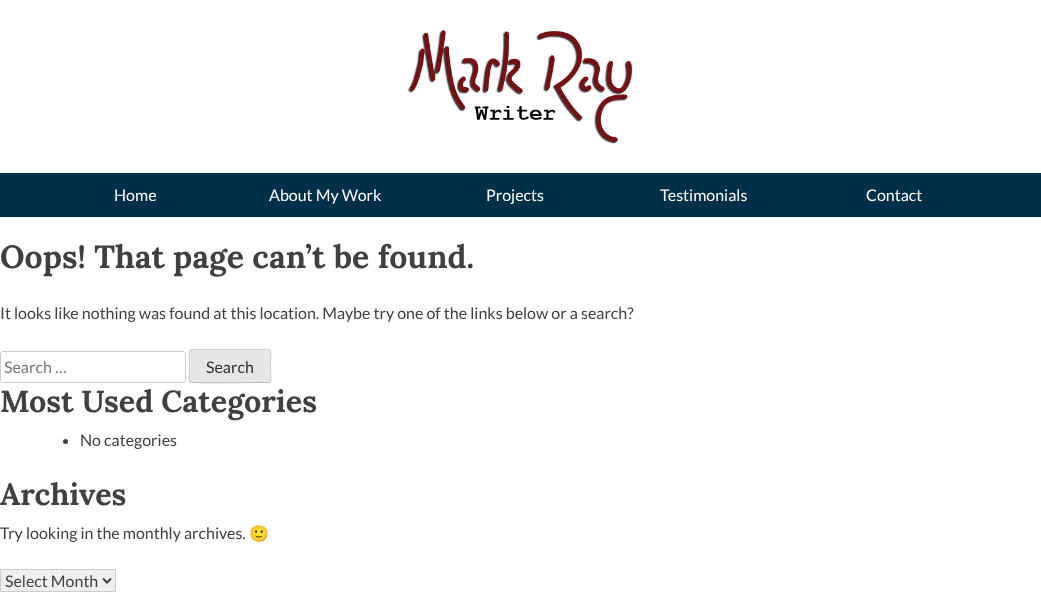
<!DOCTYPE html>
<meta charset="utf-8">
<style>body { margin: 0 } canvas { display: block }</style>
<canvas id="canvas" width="1041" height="598"></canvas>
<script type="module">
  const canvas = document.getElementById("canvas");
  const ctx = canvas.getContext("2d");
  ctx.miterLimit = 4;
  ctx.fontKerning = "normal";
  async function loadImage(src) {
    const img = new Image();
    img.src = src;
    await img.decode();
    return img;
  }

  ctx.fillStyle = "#ffffff";
  ctx.fillRect(0, 0, 1041, 598);
  ctx.drawImage(await loadImage("img1.png"), 408, 30, 225, 114);
  ctx.fillStyle = "#003049";
  ctx.fillRect(0, 173, 1041, 44);
  ctx.font = "16px Lato";
  ctx.fillStyle = "#ffffff";
  ctx.fillText("Home", 114, 201);
  ctx.fillText("About My Work", 269, 201);
  ctx.fillText("Projects", 486, 201);
  ctx.fillText("Testimonials", 660, 201);
  ctx.fillText("Contact", 866, 201);
  ctx.font = "bold 32px Lora";
  ctx.fillStyle = "#404040";
  ctx.fillText("Oops! That page can’t be found.", 0, 268);
  ctx.font = "16px Lato";
  ctx.fillText("It looks like nothing was found at this location. Maybe try one of the links below or a search?", 0, 319);
  ctx.beginPath();
  ctx.roundRect(0.5, 351.5, 185, 31, 2.5);
  ctx.strokeStyle = "#cccccc";
  ctx.stroke();
  ctx.fillStyle = "#757575";
  ctx.fillText("Search …", 4, 373);
  ctx.fillStyle = "#e6e6e6";
  ctx.beginPath();
  ctx.roundRect(189, 349, 82, 34, 3);
  ctx.fill();
  ctx.beginPath();
  ctx.moveTo(270, 382);
  ctx.lineTo(268, 382.5);
  ctx.lineTo(255.5, 382.5);
  ctx.bezierCurveTo(248.5, 382.5, 192.5, 383.5, 190.5, 382);
  ctx.lineTo(190, 382);
  ctx.strokeStyle = "#bbbbbb";
  ctx.stroke();
  ctx.beginPath();
  ctx.moveTo(190, 382);
  ctx.bezierCurveTo(188.5, 380, 189.5, 368.5, 189.5, 366);
  ctx.bezierCurveTo(189.5, 346.5, 185.5, 349.5, 204.5, 349.5);
  ctx.lineTo(255.5, 349.5);
  ctx.bezierCurveTo(274.5, 349.5, 270.5, 346.5, 270.5, 366);
  ctx.bezierCurveTo(270.5, 368.5, 271.5, 380, 270, 382);
  ctx.strokeStyle = "#cccccc";
  ctx.stroke();
  ctx.fillStyle = "#2e2e2e";
  ctx.fillText("Search", 206, 373);
  ctx.font = "bold 30.5px Lora";
  ctx.fillStyle = "#404040";
  ctx.fillText("Most Used Categories", 0, 412);
  ctx.beginPath();
  ctx.arc(65.5, 441.5, 2.5, 0, Math.PI * 2);
  ctx.fill();
  ctx.font = "16px Lato";
  ctx.fillText("No categories", 80, 446);
  ctx.font = "bold 30.5px Lora";
  ctx.fillText("Archives", 0, 505);
  ctx.font = "16px Lato";
  ctx.fillText("Try looking in the monthly archives.", 0, 539);
  ctx.font = "16px Noto Color Emoji";
  ctx.fillText("🙂", 249, 539);
  ctx.fillStyle = "#efefef";
  ctx.beginPath();
  ctx.rect(0.5, 569.5, 115, 22);
  ctx.fill();
  ctx.stroke();
  ctx.beginPath();
  ctx.moveTo(103, 578.5);
  ctx.lineTo(107, 582.5);
  ctx.lineTo(111, 578.5);
  ctx.strokeStyle = "#404040";
  ctx.lineWidth = 2;
  ctx.stroke();
  ctx.font = "16px Lato";
  ctx.fillStyle = "#404040";
  ctx.fillText("Select Month", 5, 587);
</script>
